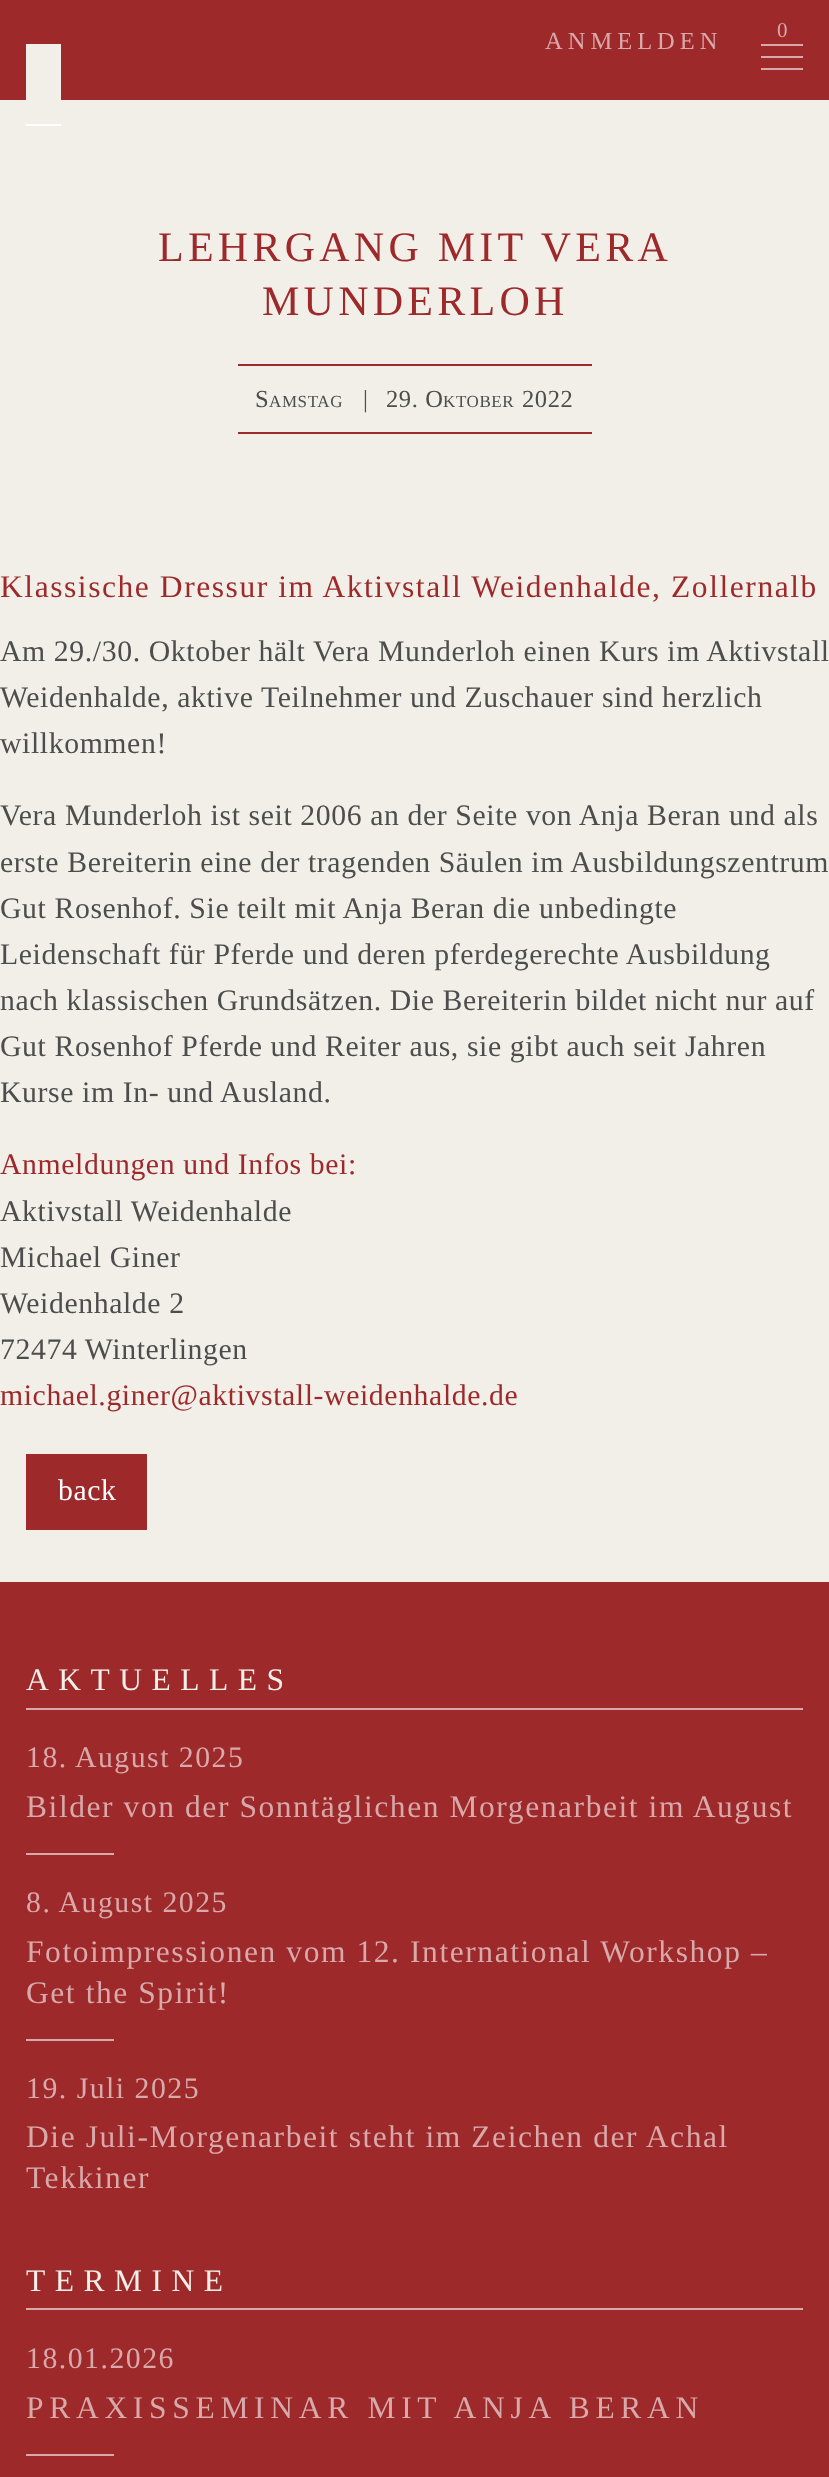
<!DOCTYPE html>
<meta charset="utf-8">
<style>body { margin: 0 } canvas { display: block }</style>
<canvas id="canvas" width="829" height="2477"></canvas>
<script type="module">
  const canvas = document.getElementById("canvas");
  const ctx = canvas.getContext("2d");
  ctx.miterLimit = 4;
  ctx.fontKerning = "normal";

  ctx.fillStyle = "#f1efe8";
  ctx.fillRect(0, 0, 829, 2477);
  ctx.fillStyle = "#9e292b";
  ctx.fillRect(0, 0, 829, 100);
  ctx.letterSpacing = "6px";
  ctx.font = "21px Liberation Serif";
  ctx.fillStyle = "#d8a9aa";
  ctx.fillText("0", 777, 37);
  ctx.letterSpacing = "5px";
  ctx.font = "24.5px Liberation Serif";
  ctx.fillText("ANMELDEN", 545, 49);
  ctx.fillStyle = "#f1efe8";
  ctx.fillRect(26, 44, 35, 56);
  ctx.fillStyle = "#ffffff";
  ctx.fillRect(26, 124, 35, 2);
  ctx.fillStyle = "#d8a9aa";
  ctx.fillRect(761, 44, 42, 2);
  ctx.fillRect(761, 56, 42, 2);
  ctx.fillRect(761, 68, 42, 2);
  ctx.letterSpacing = "4.25px";
  ctx.font = "42px Liberation Serif";
  ctx.fillStyle = "#9e292b";
  ctx.fillText("LEHRGANG MIT VERA", 158, 261);
  ctx.fillText("MUNDERLOH", 262, 315);
  ctx.fillRect(238, 364, 354, 2);
  ctx.fillRect(238, 432, 354, 2);
  ctx.letterSpacing = "0.6px";
  ctx.font = "24.5px Liberation Serif";
  ctx.fillStyle = "#4d4d4d";
  ctx.fillText("S", 255, 407);
  ctx.font = "17px Liberation Serif";
  ctx.fillText("AMSTAG", 269, 407);
  ctx.font = "24.5px Liberation Serif";
  ctx.fillText("|", 363, 407);
  ctx.fillText("29. O", 386, 407);
  ctx.font = "17px Liberation Serif";
  ctx.fillText("KTOBER", 443, 407);
  ctx.font = "24.5px Liberation Serif";
  ctx.fillText("2022", 522, 407);
  ctx.letterSpacing = "1.57px";
  ctx.font = "31.5px Liberation Serif";
  ctx.fillStyle = "#9e292b";
  ctx.fillText("Klassische Dressur im Aktivstall Weidenhalde, Zollernalb", 0, 597);
  ctx.letterSpacing = "0.6px";
  ctx.font = "29.75px Liberation Serif";
  ctx.fillStyle = "#4d4d4d";
  ctx.fillText("Am 29./30. Oktober hält Vera Munderloh einen Kurs im Aktivstall", 0, 661);
  ctx.fillText("Weidenhalde, aktive Teilnehmer und Zuschauer sind herzlich", 0, 707);
  ctx.fillText("willkommen!", 0, 753);
  ctx.fillText("Vera Munderloh ist seit 2006 an der Seite von Anja Beran und als", 0, 825);
  ctx.fillText("erste Bereiterin eine der tragenden Säulen im Ausbildungszentrum", 0, 872);
  ctx.fillText("Gut Rosenhof. Sie teilt mit Anja Beran die unbedingte", 0, 918);
  ctx.fillText("Leidenschaft für Pferde und deren pferdegerechte Ausbildung", 0, 964);
  ctx.fillText("nach klassischen Grundsätzen. Die Bereiterin bildet nicht nur auf", 0, 1010);
  ctx.fillText("Gut Rosenhof Pferde und Reiter aus, sie gibt auch seit Jahren", 0, 1056);
  ctx.fillText("Kurse im In- und Ausland.", 0, 1102);
  ctx.fillStyle = "#9e292b";
  ctx.fillText("Anmeldungen und Infos bei:", 0, 1174);
  ctx.fillStyle = "#4d4d4d";
  ctx.fillText("Aktivstall Weidenhalde", 0, 1221);
  ctx.fillText("Michael Giner", 0, 1267);
  ctx.fillText("Weidenhalde 2", 0, 1313);
  ctx.fillText("72474 Winterlingen", 0, 1359);
  ctx.fillStyle = "#9e292b";
  ctx.fillText("michael.giner@aktivstall-weidenhalde.de", 0, 1405);
  ctx.fillRect(26, 1454, 121, 76);
  ctx.fillStyle = "#ffffff";
  ctx.fillText("back", 58, 1500);
  ctx.fillStyle = "#9e292b";
  ctx.fillRect(0, 1582, 829, 895);
  ctx.letterSpacing = "9.5px";
  ctx.font = "31.5px Liberation Serif";
  ctx.fillStyle = "#f1efe8";
  ctx.fillText("AKTUELLES", 26, 1690);
  ctx.fillStyle = "#d8a9aa";
  ctx.fillRect(26, 1708, 777, 2);
  ctx.letterSpacing = "1.5px";
  ctx.font = "29.75px Liberation Serif";
  ctx.fillText("18. August 2025", 26, 1767);
  ctx.letterSpacing = "1.57px";
  ctx.font = "31.5px Liberation Serif";
  ctx.fillText("Bilder von der Sonntäglichen Morgenarbeit im August", 26, 1817);
  ctx.fillRect(26, 1853, 88, 2);
  ctx.letterSpacing = "1.5px";
  ctx.font = "29.75px Liberation Serif";
  ctx.fillText("8. August 2025", 26, 1912);
  ctx.letterSpacing = "1.57px";
  ctx.font = "31.5px Liberation Serif";
  ctx.fillText("Fotoimpressionen vom 12. International Workshop –", 26, 1962);
  ctx.fillText("Get the Spirit!", 26, 2003);
  ctx.fillRect(26, 2039, 88, 2);
  ctx.letterSpacing = "1.5px";
  ctx.font = "29.75px Liberation Serif";
  ctx.fillText("19. Juli 2025", 26, 2098);
  ctx.letterSpacing = "1.57px";
  ctx.font = "31.5px Liberation Serif";
  ctx.fillText("Die Juli-Morgenarbeit steht im Zeichen der Achal", 26, 2147);
  ctx.fillText("Tekkiner", 26, 2188);
  ctx.letterSpacing = "9.5px";
  ctx.fillStyle = "#f1efe8";
  ctx.fillText("TERMINE", 26, 2291);
  ctx.fillStyle = "#d8a9aa";
  ctx.fillRect(26, 2308, 777, 2);
  ctx.letterSpacing = "1.5px";
  ctx.font = "29.75px Liberation Serif";
  ctx.fillText("18.01.2026", 26, 2368);
  ctx.letterSpacing = "5.7px";
  ctx.font = "31.5px Liberation Serif";
  ctx.fillText("PRAXISSEMINAR MIT ANJA BERAN", 26, 2418);
  ctx.fillRect(26, 2454, 88, 2);
</script>
